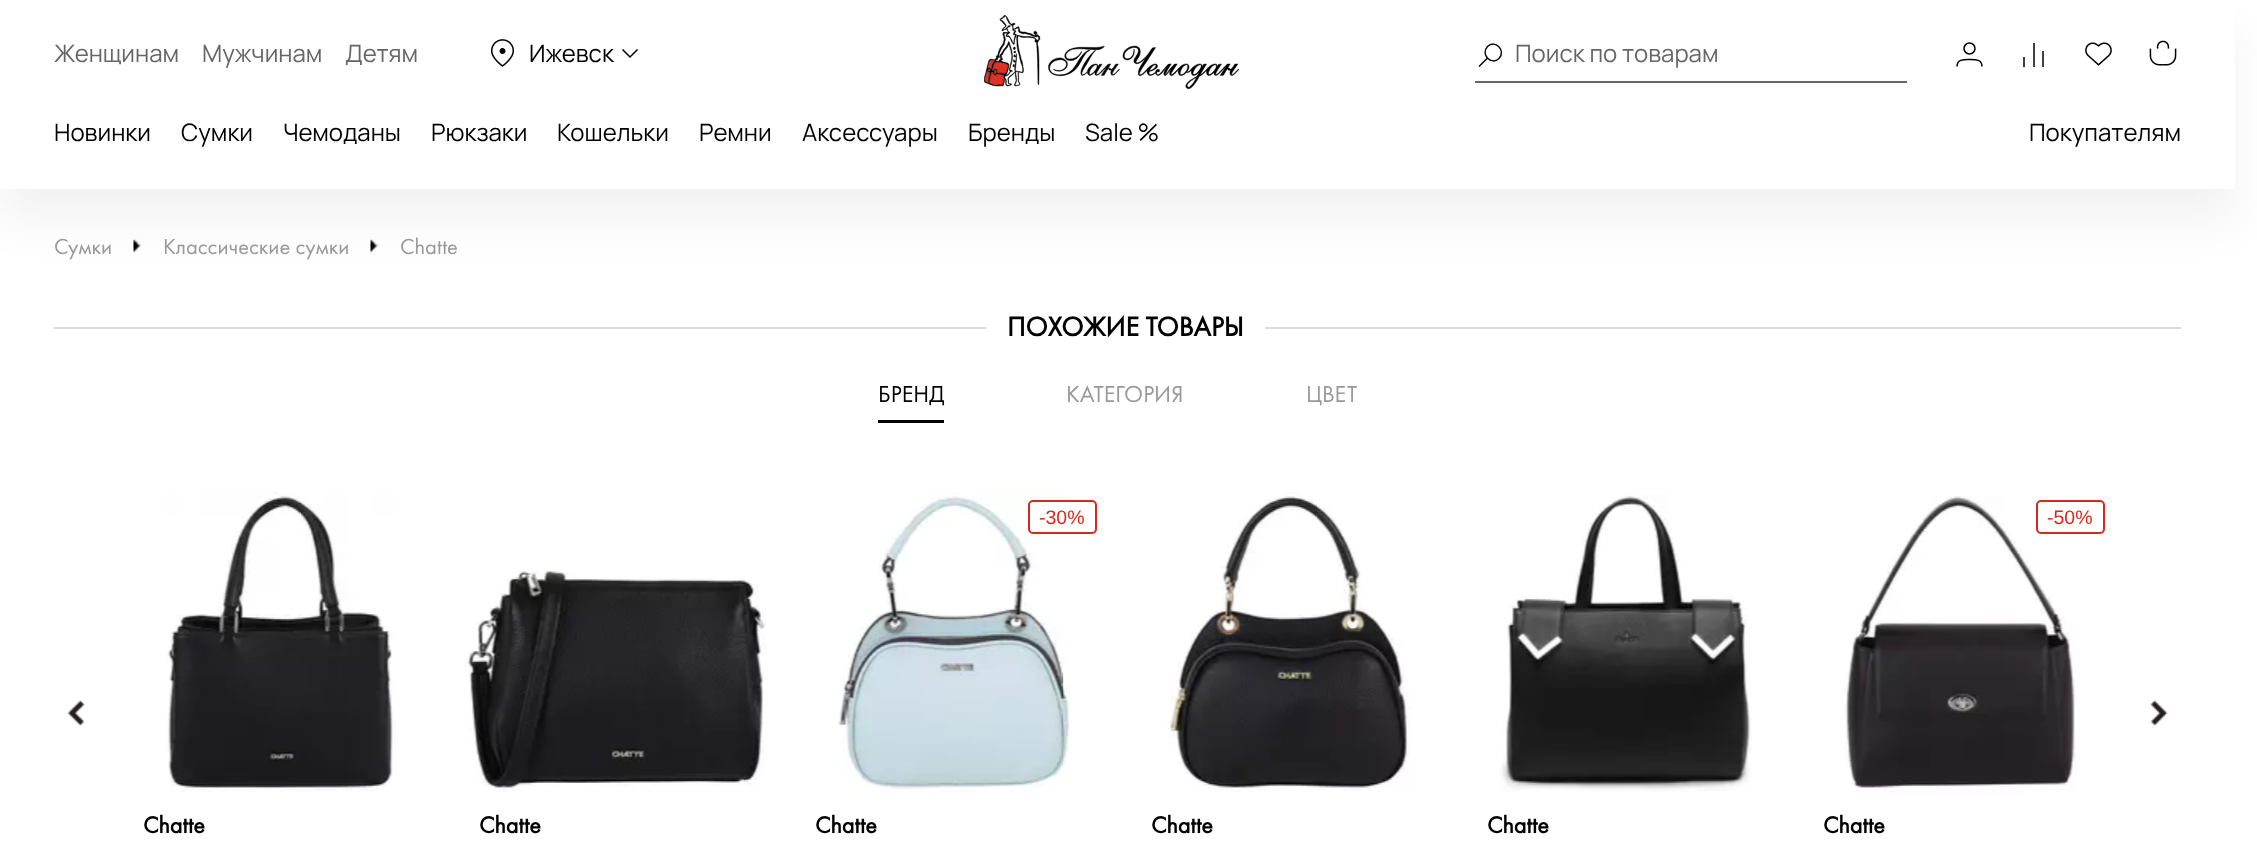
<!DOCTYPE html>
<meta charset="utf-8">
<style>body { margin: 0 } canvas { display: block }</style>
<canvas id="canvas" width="2257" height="844"></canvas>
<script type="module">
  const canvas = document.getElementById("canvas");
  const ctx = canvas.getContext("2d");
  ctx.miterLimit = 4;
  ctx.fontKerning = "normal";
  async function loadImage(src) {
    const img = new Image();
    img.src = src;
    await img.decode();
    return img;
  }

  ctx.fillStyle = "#ffffff";
  ctx.fillRect(0, 0, 2257, 844);
  ctx.drawImage(await loadImage("img5.png"), 133, 239, 9, 14);
  ctx.drawImage(await loadImage("img5.png"), 370, 239, 9, 14);
  ctx.save();
  ctx.beginPath();
  ctx.moveTo(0, 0);
  ctx.lineTo(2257, 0);
  ctx.lineTo(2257, 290);
  ctx.lineTo(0, 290);
  ctx.closePath();
  ctx.moveTo(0, 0);
  ctx.lineTo(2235, 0);
  ctx.lineTo(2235, 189);
  ctx.lineTo(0, 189);
  ctx.closePath();
  ctx.clip("evenodd");
  ctx.fillStyle = "rgba(0, 0, 0, 0.05)";
  ctx.filter = "blur(22.5px)";
  ctx.beginPath();
  ctx.rect(0, 32, 2235, 189);
  ctx.fill();
  ctx.filter = "none";
  ctx.restore();
  ctx.font = "24px Manrope";
  ctx.fillStyle = "#666666";
  ctx.fillText("Женщинам", 54, 62);
  ctx.fillText("Мужчинам", 202, 62);
  ctx.fillText("Детям", 345, 62);
  ctx.drawImage(await loadImage("img1.png"), 490, 39, 25, 28);
  ctx.fillStyle = "#000000";
  ctx.fillText("Ижевск", 529, 62);
  ctx.beginPath();
  ctx.moveTo(622.5, 49.5);
  ctx.lineTo(630, 57);
  ctx.lineTo(637.5, 49.5);
  ctx.strokeStyle = "#000000";
  ctx.lineWidth = 1.5;
  ctx.stroke();
  ctx.drawImage(await loadImage("img2.png"), 984, 15, 255, 74);
  ctx.fillStyle = "#666666";
  ctx.fillRect(1475, 81, 432, 2);
  ctx.beginPath();
  ctx.moveTo(1499, 58.5);
  ctx.bezierCurveTo(1491.5, 66, 1480, 54.5, 1487.5, 46.5);
  ctx.bezierCurveTo(1495, 39, 1506.5, 50.5, 1499, 58.5);
  ctx.closePath();
  ctx.moveTo(1487.5, 58);
  ctx.lineTo(1479, 66.5);
  ctx.lineWidth = 1.4;
  ctx.stroke();
  ctx.fillText("Поиск по товарам", 1515, 62);
  ctx.beginPath();
  ctx.arc(1969.5, 48.5, 5.5, 0, Math.PI * 2);
  ctx.lineWidth = 1.5;
  ctx.stroke();
  ctx.beginPath();
  ctx.moveTo(1982, 66.5);
  ctx.bezierCurveTo(1982, 59, 1975, 59.5, 1969.5, 59.5);
  ctx.bezierCurveTo(1964, 59.5, 1957, 59, 1957, 66.5);
  ctx.stroke();
  ctx.fillStyle = "#404040";
  ctx.fillRect(2023, 57, 2, 10);
  ctx.fillRect(2033, 43, 2, 24);
  ctx.fillRect(2042, 51, 2, 16);
  ctx.drawImage(await loadImage("img3.png"), 2085, 42, 27, 24);
  ctx.drawImage(await loadImage("img4.png"), 2149, 40, 28, 26);
  ctx.fillStyle = "#000000";
  ctx.fillText("Новинки", 54, 141);
  ctx.fillText("Сумки", 181, 141);
  ctx.fillText("Чемоданы", 283, 141);
  ctx.fillText("Рюкзаки", 431, 141);
  ctx.fillText("Кошельки", 557, 141);
  ctx.fillText("Ремни", 699, 141);
  ctx.fillText("Аксессуары", 802, 141);
  ctx.fillText("Бренды", 968, 141);
  ctx.fillText("Sale %", 1085, 141);
  ctx.fillText("Покупателям", 2029, 141);
  ctx.font = "22.5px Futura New";
  ctx.fillStyle = "#999999";
  ctx.fillText("Сумки", 54, 254);
  ctx.fillText("Классические сумки", 163, 254);
  ctx.fillText("Chatte", 400, 254);
  ctx.fillStyle = "#dcdcdc";
  ctx.fillRect(54, 327, 2127, 2);
  ctx.fillStyle = "#ffffff";
  ctx.fillRect(986, 327, 279, 2);
  ctx.font = "bold 28px Futura New";
  ctx.fillStyle = "#000000";
  ctx.fillText("ПОХОЖИЕ ТОВАРЫ", 1007, 336);
  ctx.fillRect(878, 420, 66, 3);
  ctx.font = "24px Futura New";
  ctx.fillText("БРЕНД", 878, 402);
  ctx.fillStyle = "#999999";
  ctx.fillText("КАТЕГОРИЯ", 1066, 402);
  ctx.fillText("ЦВЕТ", 1306, 402);
  ctx.drawImage(await loadImage("img6.png"), 67, 700, 18, 26);
  ctx.drawImage(await loadImage("img7.png"), 166, 492, 230, 300);
  ctx.font = "bold 24px Futura New";
  ctx.fillStyle = "#000000";
  ctx.fillText("Chatte", 143, 833);
  ctx.drawImage(await loadImage("img8.png"), 464, 571, 302, 221);
  ctx.fillText("Chatte", 479, 833);
  ctx.drawImage(await loadImage("img9.png"), 838, 492, 232, 300);
  ctx.beginPath();
  ctx.roundRect(1029, 501, 67, 32, 4);
  ctx.strokeStyle = "#db271b";
  ctx.lineWidth = 2;
  ctx.stroke();
  ctx.font = "19.5px Liberation Sans";
  ctx.fillStyle = "#db271b";
  ctx.fillText("-30%", 1039, 524);
  ctx.font = "bold 24px Futura New";
  ctx.fillStyle = "#000000";
  ctx.fillText("Chatte", 815, 833);
  ctx.drawImage(await loadImage("img10.png"), 1167, 492, 244, 300);
  ctx.fillText("Chatte", 1151, 833);
  ctx.drawImage(await loadImage("img11.png"), 1499, 492, 253, 300);
  ctx.fillText("Chatte", 1487, 833);
  ctx.drawImage(await loadImage("img12.png"), 1844, 496, 233, 297);
  ctx.beginPath();
  ctx.roundRect(2037, 501, 67, 32, 4);
  ctx.stroke();
  ctx.font = "19.5px Liberation Sans";
  ctx.fillStyle = "#db271b";
  ctx.fillText("-50%", 2047, 524);
  ctx.font = "bold 24px Futura New";
  ctx.fillStyle = "#000000";
  ctx.fillText("Chatte", 1823, 833);
  ctx.drawImage(await loadImage("img13.png"), 2150, 700, 18, 26);
</script>
